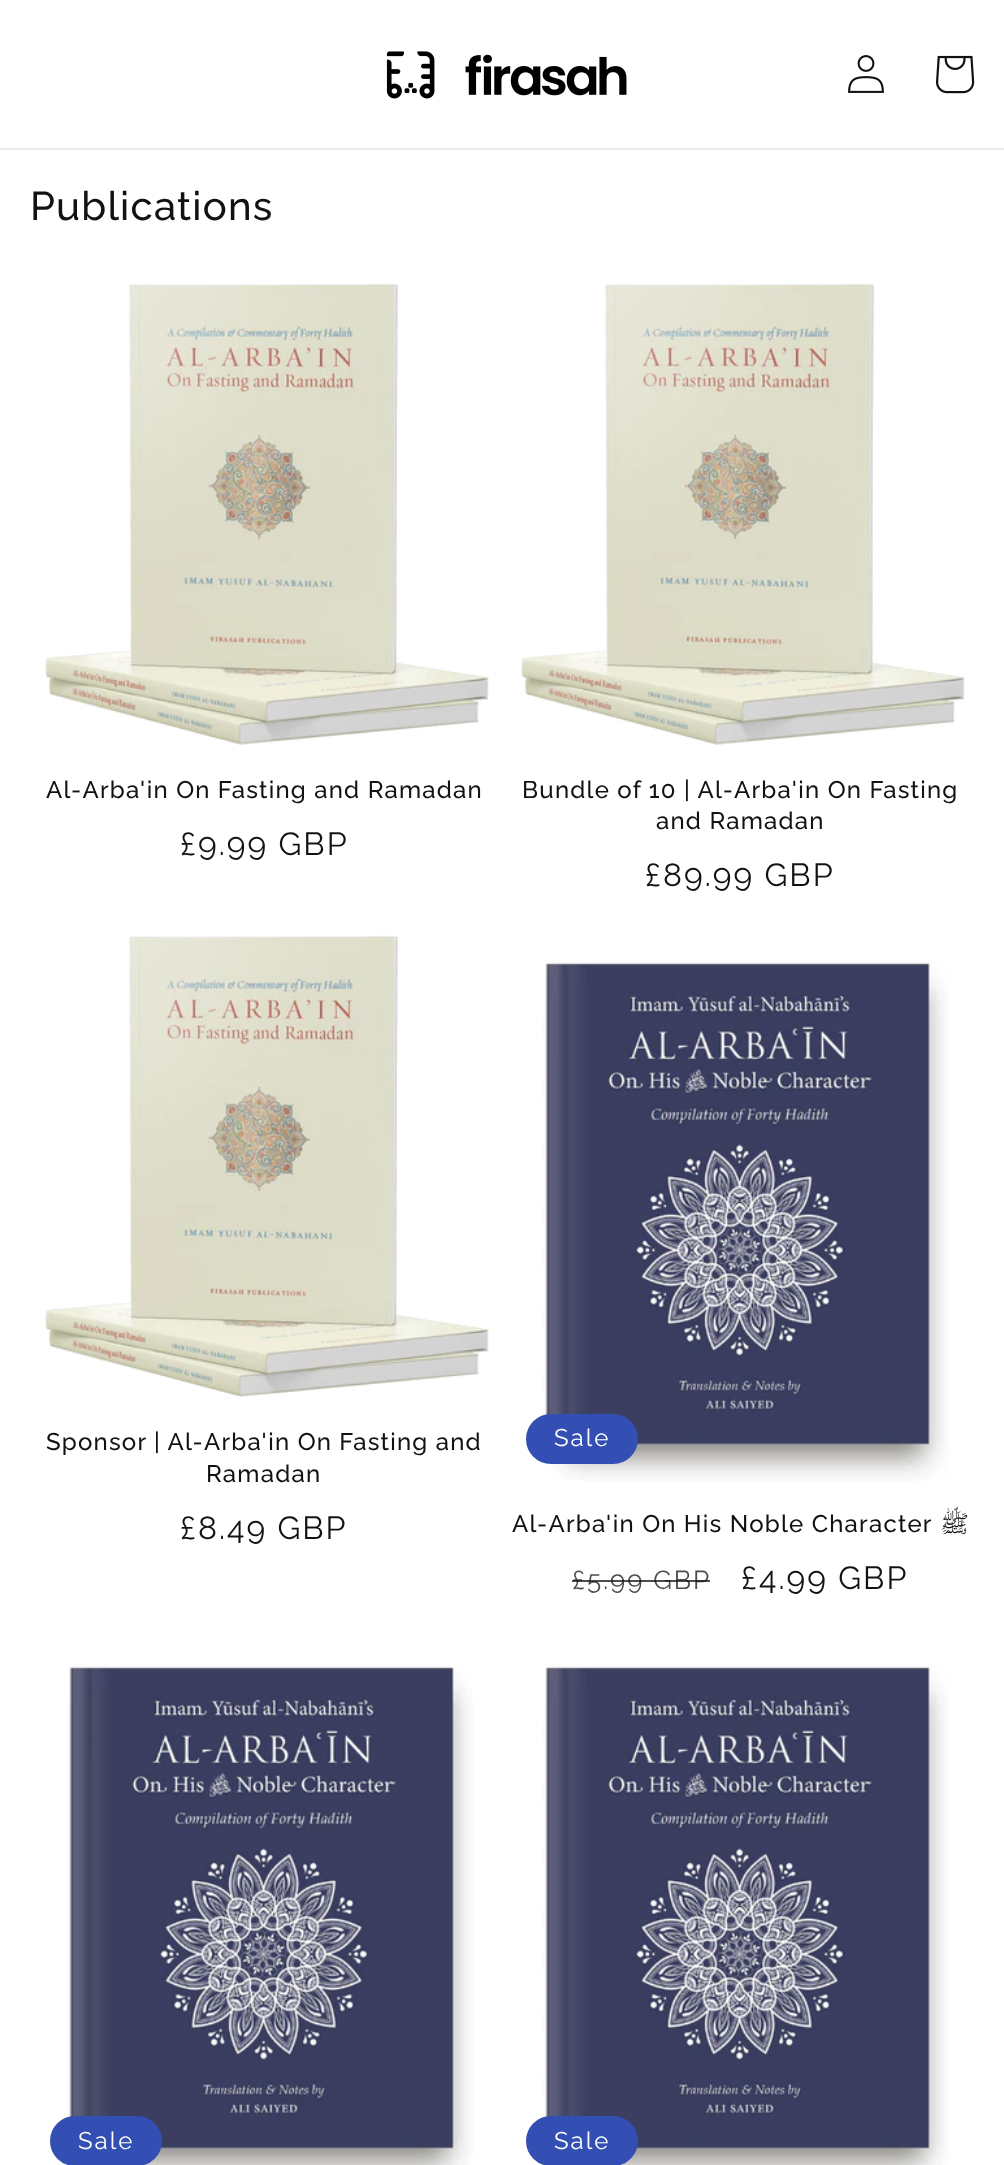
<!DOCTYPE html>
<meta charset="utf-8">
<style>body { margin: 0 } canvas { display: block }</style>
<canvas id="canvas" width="1004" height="2165"></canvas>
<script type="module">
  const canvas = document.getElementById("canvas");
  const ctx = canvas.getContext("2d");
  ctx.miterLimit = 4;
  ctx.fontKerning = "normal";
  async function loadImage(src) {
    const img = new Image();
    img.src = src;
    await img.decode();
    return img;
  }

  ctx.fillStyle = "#ffffff";
  ctx.fillRect(0, 0, 1004, 2165);
  ctx.fillStyle = "#ececec";
  ctx.fillRect(0, 148, 1004, 2);
  ctx.drawImage(await loadImage("img1.png"), 386, 51, 241, 48);
  ctx.drawImage(await loadImage("img2.png"), 848, 55, 36, 38);
  ctx.drawImage(await loadImage("img3.png"), 936, 55, 39, 39);
  ctx.letterSpacing = "1.2px";
  ctx.font = "500 40px Raleway";
  ctx.fillStyle = "#121212";
  ctx.fillText("Publications", 30, 220);
  ctx.drawImage(await loadImage("img4.png"), 45, 283, 444, 462);
  ctx.font = "500 24px Raleway";
  ctx.fillText("Al-Arba'in On Fasting and Ramadan", 46, 798);
  ctx.letterSpacing = "2px";
  ctx.font = "32px Raleway";
  ctx.fillText("£9.99 GBP", 180, 855);
  ctx.drawImage(await loadImage("img5.png"), 521, 283, 444, 462);
  ctx.letterSpacing = "1.2px";
  ctx.font = "500 24px Raleway";
  ctx.fillText("Bundle of 10 | Al-Arba'in On Fasting", 522, 798);
  ctx.fillText("and Ramadan", 656, 829);
  ctx.letterSpacing = "2px";
  ctx.font = "32px Raleway";
  ctx.fillText("£89.99 GBP", 645, 886);
  ctx.drawImage(await loadImage("img4.png"), 45, 935, 444, 462);
  ctx.letterSpacing = "1.2px";
  ctx.font = "500 24px Raleway";
  ctx.fillText("Sponsor | Al-Arba'in On Fasting and", 46, 1450);
  ctx.fillText("Ramadan", 206, 1482);
  ctx.letterSpacing = "2px";
  ctx.font = "32px Raleway";
  ctx.fillText("£8.49 GBP", 180, 1539);
  ctx.drawImage(await loadImage("img6.png"), 543, 960, 406, 521);
  ctx.fillStyle = "#334fb4";
  ctx.beginPath();
  ctx.roundRect(527, 1415, 110, 48, 24);
  ctx.fill();
  ctx.strokeStyle = "#334fb4";
  ctx.lineWidth = 2;
  ctx.stroke();
  ctx.font = "24px Raleway";
  ctx.fillStyle = "#ffffff";
  ctx.fillText("Sale", 554, 1446);
  ctx.letterSpacing = "1.2px";
  ctx.font = "500 24px Raleway";
  ctx.fillStyle = "#121212";
  ctx.fillText("Al-Arba'in On His Noble Character", 512, 1532);
  ctx.direction = "rtl";
  ctx.font = "24px Lateef";
  ctx.fillText("ﷺ", 969, 1532);
  ctx.letterSpacing = "2px";
  ctx.direction = "ltr";
  ctx.font = "26px Raleway";
  ctx.fillStyle = "#4d4d4d";
  ctx.fillText("£5.99 GBP", 572, 1589);
  ctx.fillStyle = "rgba(18, 18, 18, 0.75)";
  ctx.fillRect(572, 1580, 138, 2);
  ctx.font = "32px Raleway";
  ctx.fillStyle = "#121212";
  ctx.fillText("£4.99 GBP", 741, 1589);
  ctx.drawImage(await loadImage("img7.png"), 67, 1664, 406, 501);
  ctx.fillStyle = "#334fb4";
  ctx.beginPath();
  ctx.roundRect(51, 2117, 110, 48, 24);
  ctx.fill();
  ctx.stroke();
  ctx.font = "24px Raleway";
  ctx.fillStyle = "#ffffff";
  ctx.fillText("Sale", 78, 2149);
  ctx.drawImage(await loadImage("img8.png"), 543, 1664, 406, 501);
  ctx.fillStyle = "#334fb4";
  ctx.beginPath();
  ctx.roundRect(527, 2117, 110, 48, 24);
  ctx.fill();
  ctx.stroke();
  ctx.fillStyle = "#ffffff";
  ctx.fillText("Sale", 554, 2149);
</script>
